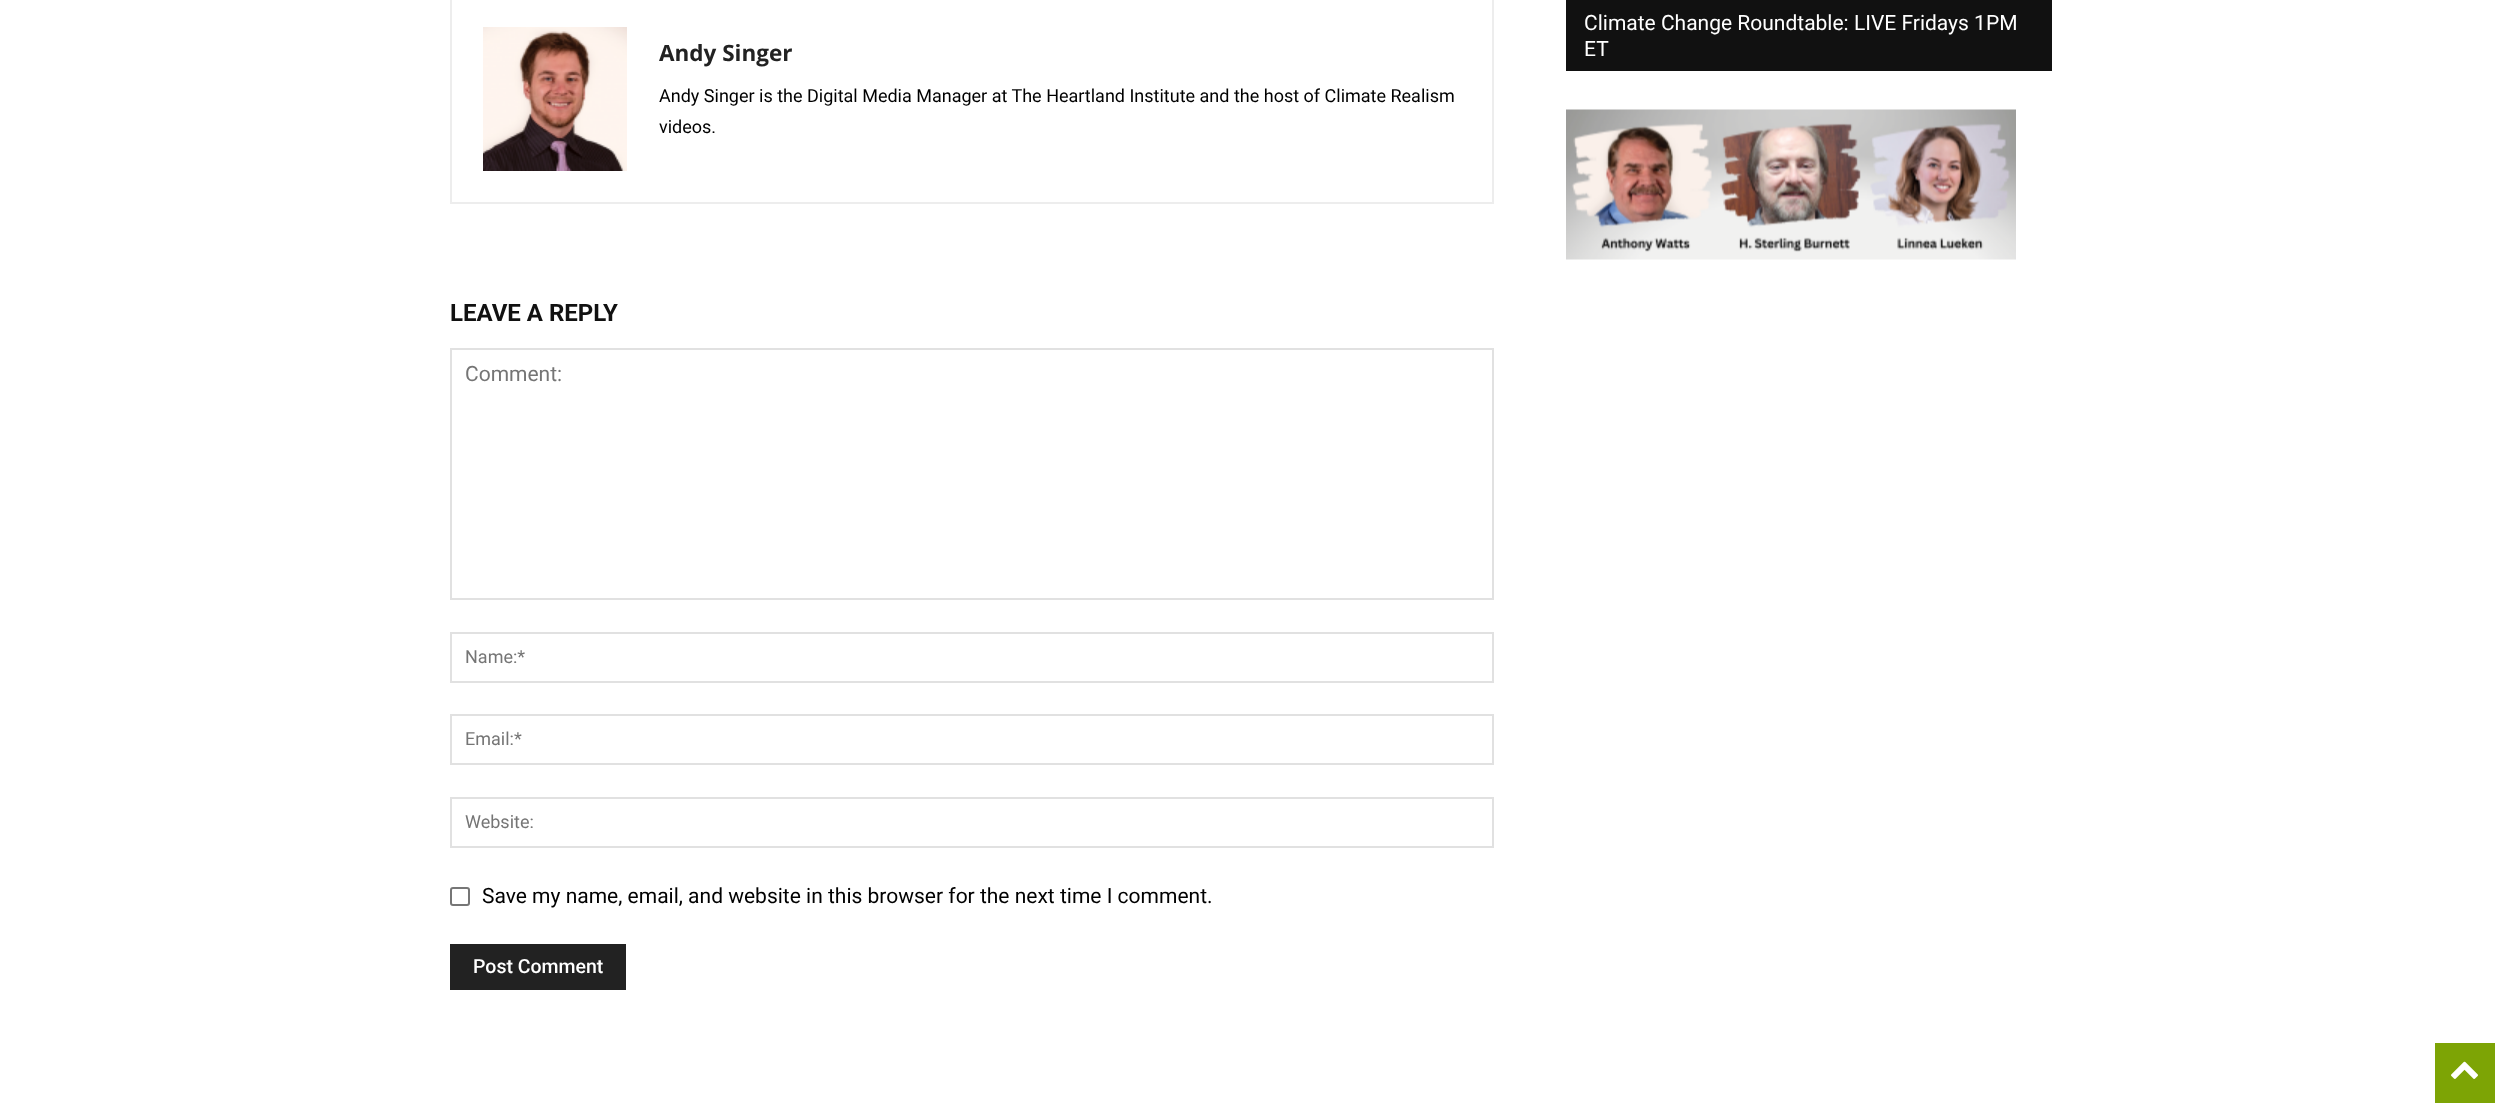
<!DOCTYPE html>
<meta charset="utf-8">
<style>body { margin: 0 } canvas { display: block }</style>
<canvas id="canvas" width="2502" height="1108"></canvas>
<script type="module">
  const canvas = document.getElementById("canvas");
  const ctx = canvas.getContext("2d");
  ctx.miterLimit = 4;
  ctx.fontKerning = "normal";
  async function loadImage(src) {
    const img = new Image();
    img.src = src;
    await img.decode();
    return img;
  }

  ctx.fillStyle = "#ffffff";
  ctx.fillRect(0, 0, 2502, 1108);
  ctx.fillStyle = "#111111";
  ctx.fillRect(1566, 0, 486, 71);
  ctx.font = "21px Roboto";
  ctx.fillStyle = "#ffffff";
  ctx.fillText("Climate Change Roundtable: LIVE Fridays 1PM", 1584, 30);
  ctx.fillText("ET", 1584, 56);
  ctx.drawImage(await loadImage("img1.png"), 1566, 109, 450, 151);
  ctx.strokeStyle = "#ededed";
  ctx.lineWidth = 2;
  ctx.strokeRect(451, -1, 1042, 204);
  ctx.drawImage(await loadImage("img2.png"), 483, 27, 144, 144);
  ctx.font = "bold 22.5px Open Sans";
  ctx.fillStyle = "#222222";
  ctx.fillText("Andy Singer", 659, 61);
  ctx.font = "18px Roboto";
  ctx.fillStyle = "#000000";
  ctx.fillText("Andy Singer is the Digital Media Manager at The Heartland Institute and the host of Climate Realism", 659, 102);
  ctx.fillText("videos.", 659, 133);
  ctx.font = "bold 24px Roboto";
  ctx.fillStyle = "#111111";
  ctx.fillText("LEAVE A REPLY", 450, 321);
  ctx.strokeStyle = "#e1e1e1";
  ctx.strokeRect(451, 349, 1042, 250);
  ctx.font = "21px Roboto";
  ctx.fillStyle = "#757575";
  ctx.fillText("Comment:", 465, 381);
  ctx.strokeRect(451, 633, 1042, 49);
  ctx.font = "18px Roboto";
  ctx.fillText("Name:*", 465, 663);
  ctx.strokeRect(451, 715, 1042, 49);
  ctx.fillText("Email:*", 465, 745);
  ctx.strokeRect(451, 798, 1042, 49);
  ctx.fillText("Website:", 465, 828);
  ctx.beginPath();
  ctx.roundRect(451, 888, 18, 17, 2);
  ctx.strokeStyle = "#767676";
  ctx.stroke();
  ctx.font = "21px Roboto";
  ctx.fillStyle = "#000000";
  ctx.fillText("Save my name, email, and website in this browser for the next time I comment.", 482, 903);
  ctx.fillStyle = "#222222";
  ctx.fillRect(450, 944, 176, 46);
  ctx.font = "500 19.5px Roboto";
  ctx.fillStyle = "#ffffff";
  ctx.fillText("Post Comment", 473, 973);
  ctx.fillStyle = "#7da405";
  ctx.fillRect(2435, 1043, 60, 60);
  ctx.drawImage(await loadImage("img3.png"), 2451, 1061, 27, 18);
</script>
